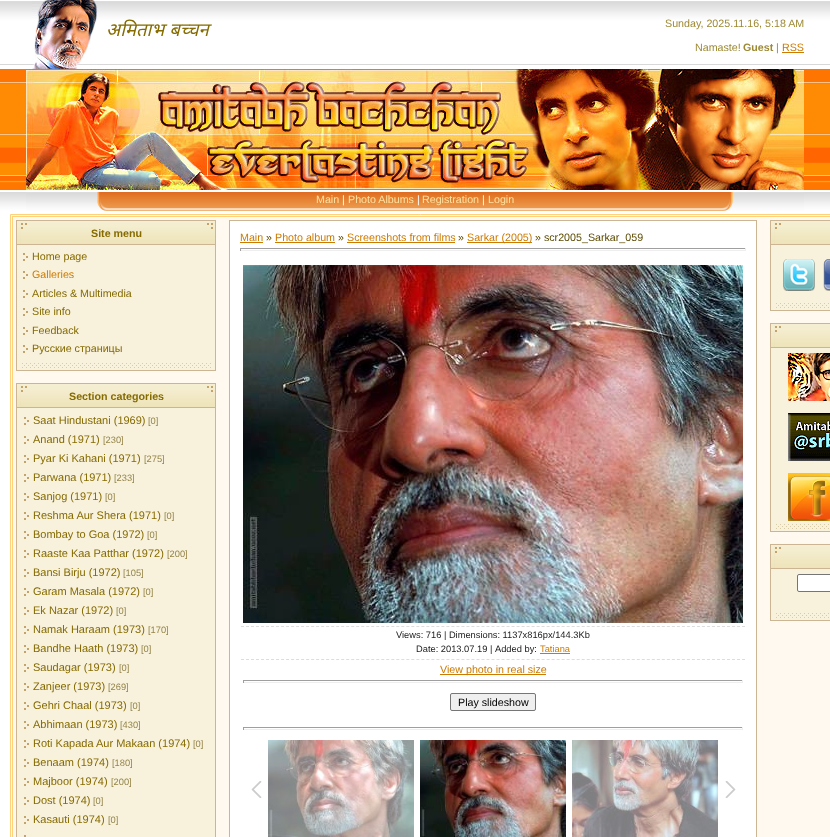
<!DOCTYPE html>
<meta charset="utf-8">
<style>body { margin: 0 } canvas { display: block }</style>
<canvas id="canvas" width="830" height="837"></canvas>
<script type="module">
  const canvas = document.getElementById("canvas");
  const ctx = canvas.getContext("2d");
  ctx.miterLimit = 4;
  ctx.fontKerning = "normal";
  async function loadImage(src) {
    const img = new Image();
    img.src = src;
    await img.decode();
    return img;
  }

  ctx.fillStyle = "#ffffff";
  ctx.fillRect(0, 0, 830, 837);
  ctx.drawImage(await loadImage("img1.png"), 0, 0, 830, 214);
  ctx.drawImage(await loadImage("img2.png"), 32, 0, 66, 69);
  ctx.font = "italic 18.5px Noto Sans";
  ctx.fillStyle = "#856b00";
  ctx.fillText("अमिताभ बच्चन", 106, 36);
  ctx.font = "10.7px Liberation Sans";
  ctx.fillStyle = "#9d8933";
  ctx.fillText("Sunday, 2025.11.16, 5:18 AM", 665, 27);
  ctx.fillText("Namaste!", 695, 51);
  ctx.font = "bold 10.7px Liberation Sans";
  ctx.fillText("Guest", 743, 51);
  ctx.font = "10.7px Liberation Sans";
  ctx.fillText("|", 776, 51);
  ctx.fillStyle = "#cc7b00";
  ctx.fillText("RSS", 782, 51);
  ctx.fillRect(782, 52, 22, 1);
  ctx.drawImage(await loadImage("img3.png"), 26, 69, 778, 121);
  ctx.fillStyle = "#ffffff";
  ctx.fillRect(0, 191, 830, 1);
  ctx.drawImage(await loadImage("img4.png"), 108, 192, 614, 19);
  ctx.drawImage(await loadImage("img5.png"), 26, 192, 82, 19);
  ctx.fillStyle = "#ffe2a2";
  ctx.fillText("Main", 316, 203);
  ctx.fillStyle = "#ffffff";
  ctx.fillText("|", 342, 203);
  ctx.fillStyle = "#ffe2a2";
  ctx.fillText("Photo Albums", 348, 203);
  ctx.fillStyle = "#ffffff";
  ctx.fillText("|", 417, 203);
  ctx.fillStyle = "#ffe2a2";
  ctx.fillText("Registration", 422, 203);
  ctx.fillStyle = "#ffffff";
  ctx.fillText("|", 482, 203);
  ctx.fillStyle = "#ffe2a2";
  ctx.fillText("Login", 488, 203);
  ctx.drawImage(await loadImage("img6.png"), 722, 192, 82, 19);
  ctx.fillStyle = "#fff9ef";
  ctx.beginPath();
  ctx.rect(10.5, 214.5, 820, 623);
  ctx.fill();
  ctx.strokeStyle = "#ffd17b";
  ctx.stroke();
  ctx.strokeRect(12.5, 216.5, 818, 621);
  ctx.fillStyle = "#cbb592";
  ctx.fillRect(16, 220, 200, 151);
  ctx.drawImage(await loadImage("img7.png"), 17, 221, 198, 23);
  ctx.font = "bold 10.7px Liberation Sans";
  ctx.fillStyle = "#856b00";
  ctx.fillText("Site menu", 91, 237);
  ctx.fillStyle = "#f8f1dc";
  ctx.fillRect(17, 245, 198, 125);
  ctx.drawImage(await loadImage("img8.png"), 22, 363, 189, 5);
  ctx.drawImage(await loadImage("img9.png"), 23, 253, 5, 8);
  ctx.font = "10.7px Liberation Sans";
  ctx.fillStyle = "#856b00";
  ctx.fillText("Home page", 32, 260);
  ctx.drawImage(await loadImage("img9.png"), 23, 271, 5, 8);
  ctx.fillStyle = "#cc7b00";
  ctx.fillText("Galleries", 32, 278);
  ctx.drawImage(await loadImage("img9.png"), 23, 290, 5, 8);
  ctx.fillStyle = "#856b00";
  ctx.fillText("Articles & Multimedia", 32, 297);
  ctx.drawImage(await loadImage("img9.png"), 23, 308, 5, 8);
  ctx.fillText("Site info", 32, 315);
  ctx.drawImage(await loadImage("img9.png"), 23, 327, 5, 8);
  ctx.fillText("Feedback", 32, 334);
  ctx.drawImage(await loadImage("img9.png"), 23, 345, 5, 8);
  ctx.fillText("Русские страницы", 32, 352);
  ctx.fillStyle = "#cbb592";
  ctx.fillRect(16, 383, 200, 454);
  ctx.drawImage(await loadImage("img7.png"), 17, 384, 198, 23);
  ctx.font = "bold 10.7px Liberation Sans";
  ctx.fillStyle = "#856b00";
  ctx.fillText("Section categories", 69, 400);
  ctx.fillStyle = "#f8f1dc";
  ctx.fillRect(17, 408, 198, 429);
  ctx.drawImage(await loadImage("img9.png"), 24, 417, 5, 8);
  ctx.font = "11px Liberation Sans";
  ctx.fillStyle = "#856b00";
  ctx.fillText("Saat Hindustani (1969)", 33, 424);
  ctx.font = "9.3px Liberation Sans";
  ctx.fillStyle = "#948549";
  ctx.fillText("[0]", 148, 424);
  ctx.drawImage(await loadImage("img9.png"), 24, 436, 5, 8);
  ctx.font = "11px Liberation Sans";
  ctx.fillStyle = "#856b00";
  ctx.fillText("Anand (1971)", 33, 443);
  ctx.font = "9.3px Liberation Sans";
  ctx.fillStyle = "#948549";
  ctx.fillText("[230]", 103, 443);
  ctx.drawImage(await loadImage("img9.png"), 24, 455, 5, 8);
  ctx.font = "11px Liberation Sans";
  ctx.fillStyle = "#856b00";
  ctx.fillText("Pyar Ki Kahani (1971)", 33, 462);
  ctx.font = "9.3px Liberation Sans";
  ctx.fillStyle = "#948549";
  ctx.fillText("[275]", 144, 462);
  ctx.drawImage(await loadImage("img9.png"), 24, 474, 5, 8);
  ctx.font = "11px Liberation Sans";
  ctx.fillStyle = "#856b00";
  ctx.fillText("Parwana (1971)", 33, 481);
  ctx.font = "9.3px Liberation Sans";
  ctx.fillStyle = "#948549";
  ctx.fillText("[233]", 114, 481);
  ctx.drawImage(await loadImage("img9.png"), 24, 493, 5, 8);
  ctx.font = "11px Liberation Sans";
  ctx.fillStyle = "#856b00";
  ctx.fillText("Sanjog (1971)", 33, 500);
  ctx.font = "9.3px Liberation Sans";
  ctx.fillStyle = "#948549";
  ctx.fillText("[0]", 105, 500);
  ctx.drawImage(await loadImage("img9.png"), 24, 512, 5, 8);
  ctx.font = "11px Liberation Sans";
  ctx.fillStyle = "#856b00";
  ctx.fillText("Reshma Aur Shera (1971)", 33, 519);
  ctx.font = "9.3px Liberation Sans";
  ctx.fillStyle = "#948549";
  ctx.fillText("[0]", 164, 519);
  ctx.drawImage(await loadImage("img9.png"), 24, 531, 5, 8);
  ctx.font = "11px Liberation Sans";
  ctx.fillStyle = "#856b00";
  ctx.fillText("Bombay to Goa (1972)", 33, 538);
  ctx.font = "9.3px Liberation Sans";
  ctx.fillStyle = "#948549";
  ctx.fillText("[0]", 147, 538);
  ctx.drawImage(await loadImage("img9.png"), 24, 550, 5, 8);
  ctx.font = "11px Liberation Sans";
  ctx.fillStyle = "#856b00";
  ctx.fillText("Raaste Kaa Patthar (1972)", 33, 557);
  ctx.font = "9.3px Liberation Sans";
  ctx.fillStyle = "#948549";
  ctx.fillText("[200]", 167, 557);
  ctx.drawImage(await loadImage("img9.png"), 24, 569, 5, 8);
  ctx.font = "11px Liberation Sans";
  ctx.fillStyle = "#856b00";
  ctx.fillText("Bansi Birju (1972)", 33, 576);
  ctx.font = "9.3px Liberation Sans";
  ctx.fillStyle = "#948549";
  ctx.fillText("[105]", 123, 576);
  ctx.drawImage(await loadImage("img9.png"), 24, 588, 5, 8);
  ctx.font = "11px Liberation Sans";
  ctx.fillStyle = "#856b00";
  ctx.fillText("Garam Masala (1972)", 33, 595);
  ctx.font = "9.3px Liberation Sans";
  ctx.fillStyle = "#948549";
  ctx.fillText("[0]", 143, 595);
  ctx.drawImage(await loadImage("img9.png"), 24, 607, 5, 8);
  ctx.font = "11px Liberation Sans";
  ctx.fillStyle = "#856b00";
  ctx.fillText("Ek Nazar (1972)", 33, 614);
  ctx.font = "9.3px Liberation Sans";
  ctx.fillStyle = "#948549";
  ctx.fillText("[0]", 116, 614);
  ctx.drawImage(await loadImage("img9.png"), 24, 626, 5, 8);
  ctx.font = "11px Liberation Sans";
  ctx.fillStyle = "#856b00";
  ctx.fillText("Namak Haraam (1973)", 33, 633);
  ctx.font = "9.3px Liberation Sans";
  ctx.fillStyle = "#948549";
  ctx.fillText("[170]", 148, 633);
  ctx.drawImage(await loadImage("img9.png"), 24, 645, 5, 8);
  ctx.font = "11px Liberation Sans";
  ctx.fillStyle = "#856b00";
  ctx.fillText("Bandhe Haath (1973)", 33, 652);
  ctx.font = "9.3px Liberation Sans";
  ctx.fillStyle = "#948549";
  ctx.fillText("[0]", 141, 652);
  ctx.drawImage(await loadImage("img9.png"), 24, 664, 5, 8);
  ctx.font = "11px Liberation Sans";
  ctx.fillStyle = "#856b00";
  ctx.fillText("Saudagar (1973)", 33, 671);
  ctx.font = "9.3px Liberation Sans";
  ctx.fillStyle = "#948549";
  ctx.fillText("[0]", 119, 671);
  ctx.drawImage(await loadImage("img9.png"), 24, 683, 5, 8);
  ctx.font = "11px Liberation Sans";
  ctx.fillStyle = "#856b00";
  ctx.fillText("Zanjeer (1973)", 33, 690);
  ctx.font = "9.3px Liberation Sans";
  ctx.fillStyle = "#948549";
  ctx.fillText("[269]", 108, 690);
  ctx.drawImage(await loadImage("img9.png"), 24, 702, 5, 8);
  ctx.font = "11px Liberation Sans";
  ctx.fillStyle = "#856b00";
  ctx.fillText("Gehri Chaal (1973)", 33, 709);
  ctx.font = "9.3px Liberation Sans";
  ctx.fillStyle = "#948549";
  ctx.fillText("[0]", 130, 709);
  ctx.drawImage(await loadImage("img9.png"), 24, 721, 5, 8);
  ctx.font = "11px Liberation Sans";
  ctx.fillStyle = "#856b00";
  ctx.fillText("Abhimaan (1973)", 33, 728);
  ctx.font = "9.3px Liberation Sans";
  ctx.fillStyle = "#948549";
  ctx.fillText("[430]", 120, 728);
  ctx.drawImage(await loadImage("img9.png"), 24, 740, 5, 8);
  ctx.font = "11px Liberation Sans";
  ctx.fillStyle = "#856b00";
  ctx.fillText("Roti Kapada Aur Makaan (1974)", 33, 747);
  ctx.font = "9.3px Liberation Sans";
  ctx.fillStyle = "#948549";
  ctx.fillText("[0]", 193, 747);
  ctx.drawImage(await loadImage("img9.png"), 24, 759, 5, 8);
  ctx.font = "11px Liberation Sans";
  ctx.fillStyle = "#856b00";
  ctx.fillText("Benaam (1974)", 33, 766);
  ctx.font = "9.3px Liberation Sans";
  ctx.fillStyle = "#948549";
  ctx.fillText("[180]", 112, 766);
  ctx.drawImage(await loadImage("img9.png"), 24, 778, 5, 8);
  ctx.font = "11px Liberation Sans";
  ctx.fillStyle = "#856b00";
  ctx.fillText("Majboor (1974)", 33, 785);
  ctx.font = "9.3px Liberation Sans";
  ctx.fillStyle = "#948549";
  ctx.fillText("[200]", 111, 785);
  ctx.drawImage(await loadImage("img9.png"), 24, 797, 5, 8);
  ctx.font = "11px Liberation Sans";
  ctx.fillStyle = "#856b00";
  ctx.fillText("Dost (1974)", 33, 804);
  ctx.font = "9.3px Liberation Sans";
  ctx.fillStyle = "#948549";
  ctx.fillText("[0]", 93, 804);
  ctx.drawImage(await loadImage("img9.png"), 24, 816, 5, 8);
  ctx.font = "11px Liberation Sans";
  ctx.fillStyle = "#856b00";
  ctx.fillText("Kasauti (1974)", 33, 823);
  ctx.font = "9.3px Liberation Sans";
  ctx.fillStyle = "#948549";
  ctx.fillText("[0]", 108, 823);
  ctx.fillStyle = "#c2a36e";
  ctx.fillRect(24, 835, 2, 2);
  ctx.strokeStyle = "#cbb592";
  ctx.strokeRect(229.5, 220.5, 527, 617);
  ctx.fillStyle = "#ffffff";
  ctx.fillRect(230, 221, 526, 616);
  ctx.font = "10.7px Liberation Sans";
  ctx.fillStyle = "#cc7b00";
  ctx.fillText("Main", 240, 241);
  ctx.fillRect(240, 242, 23, 1);
  ctx.fillStyle = "#5d4b00";
  ctx.fillText("»", 266, 241);
  ctx.fillStyle = "#cc7b00";
  ctx.fillText("Photo album", 275, 241);
  ctx.fillRect(275, 242, 60, 1);
  ctx.fillStyle = "#5d4b00";
  ctx.fillText("»", 338, 241);
  ctx.fillStyle = "#cc7b00";
  ctx.fillText("Screenshots from films", 347, 241);
  ctx.fillRect(347, 242, 108, 1);
  ctx.fillStyle = "#5d4b00";
  ctx.fillText("»", 458, 241);
  ctx.fillStyle = "#cc7b00";
  ctx.fillRect(467, 242, 65, 1);
  ctx.fillText("Sarkar (2005)", 467, 241);
  ctx.fillStyle = "#5d4b00";
  ctx.fillText("» scr2005_Sarkar_059", 535, 241);
  ctx.fillStyle = "#9f9f9f";
  ctx.fillRect(240, 248, 506, 1);
  ctx.fillStyle = "#eeeeee";
  ctx.fillRect(745, 248, 1, 3);
  ctx.fillRect(240, 250, 506, 1);
  ctx.fillStyle = "#9f9f9f";
  ctx.fillRect(240, 248, 1, 3);
  ctx.drawImage(await loadImage("img10.png"), 243, 265, 500, 358);
  ctx.beginPath();
  ctx.moveTo(241, 626.5);
  ctx.lineTo(745, 626.5);
  ctx.strokeStyle = "#dddddd";
  ctx.setLineDash([3, 2.01]);
  ctx.stroke();
  ctx.beginPath();
  ctx.moveTo(241, 659.5);
  ctx.lineTo(745, 659.5);
  ctx.stroke();
  ctx.font = "9.3px Liberation Sans";
  ctx.fillStyle = "#1a1a1a";
  ctx.fillText("Views: 716 | Dimensions: 1137x816px/144.3Kb", 396, 638);
  ctx.fillText("Date: 2013.07.19 |", 416, 652);
  ctx.fillText("Added by:", 495, 652);
  ctx.fillStyle = "#cc7b00";
  ctx.fillText("Tatiana", 540, 652);
  ctx.fillRect(540, 653, 30, 1);
  ctx.fillRect(440, 674, 106, 1);
  ctx.font = "10.7px Liberation Sans";
  ctx.fillText("View photo in real size", 440, 673);
  ctx.fillStyle = "#9f9f9f";
  ctx.fillRect(243, 680, 500, 1);
  ctx.fillStyle = "#eeeeee";
  ctx.fillRect(742, 680, 1, 3);
  ctx.fillRect(243, 682, 500, 1);
  ctx.fillStyle = "#9f9f9f";
  ctx.fillRect(243, 680, 1, 3);
  ctx.fillStyle = "#efefef";
  ctx.beginPath();
  ctx.roundRect(450.5, 693.5, 85, 17, 1.5);
  ctx.fill();
  ctx.strokeStyle = "#767676";
  ctx.setLineDash([]);
  ctx.stroke();
  ctx.fillStyle = "#000000";
  ctx.fillText("Play slideshow", 458, 706);
  ctx.fillStyle = "#9f9f9f";
  ctx.fillRect(243, 727, 500, 1);
  ctx.fillStyle = "#eeeeee";
  ctx.fillRect(742, 727, 1, 3);
  ctx.fillRect(243, 729, 500, 1);
  ctx.fillStyle = "#9f9f9f";
  ctx.fillRect(243, 727, 1, 3);
  ctx.drawImage(await loadImage("img11.png"), 251, 781, 11, 17);
  ctx.drawImage(await loadImage("img12.png"), 268, 740, 146, 97);
  ctx.drawImage(await loadImage("img13.png"), 420, 740, 146, 97);
  ctx.drawImage(await loadImage("img14.png"), 572, 740, 146, 97);
  ctx.drawImage(await loadImage("img15.png"), 725, 781, 11, 17);
  ctx.fillStyle = "#cbb592";
  ctx.fillRect(770, 220, 60, 91);
  ctx.drawImage(await loadImage("img16.png"), 771, 221, 59, 23);
  ctx.fillStyle = "#f8f1dc";
  ctx.fillRect(771, 245, 59, 65);
  ctx.drawImage(await loadImage("img17.png"), 776, 303, 53, 5);
  ctx.drawImage(await loadImage("img18.png"), 783, 259, 32, 32);
  ctx.drawImage(await loadImage("img19.png"), 823, 259, 7, 32);
  ctx.fillStyle = "#cbb592";
  ctx.fillRect(770, 323, 60, 209);
  ctx.drawImage(await loadImage("img16.png"), 771, 324, 59, 23);
  ctx.fillStyle = "#f8f1dc";
  ctx.fillRect(771, 348, 59, 183);
  ctx.drawImage(await loadImage("img17.png"), 776, 524, 53, 5);
  ctx.drawImage(await loadImage("img20.png"), 788, 353, 42, 48);
  ctx.drawImage(await loadImage("img21.png"), 788, 413, 42, 48);
  ctx.drawImage(await loadImage("img22.png"), 788, 473, 42, 48);
  ctx.fillStyle = "#cbb592";
  ctx.fillRect(770, 544, 60, 77);
  ctx.drawImage(await loadImage("img16.png"), 771, 545, 59, 23);
  ctx.fillStyle = "#f8f1dc";
  ctx.fillRect(771, 569, 59, 51);
  ctx.drawImage(await loadImage("img17.png"), 776, 613, 53, 5);
  ctx.fillStyle = "#ffffff";
  ctx.beginPath();
  ctx.roundRect(797.5, 574.5, 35, 17, 1.5);
  ctx.fill();
  ctx.stroke();
</script>
